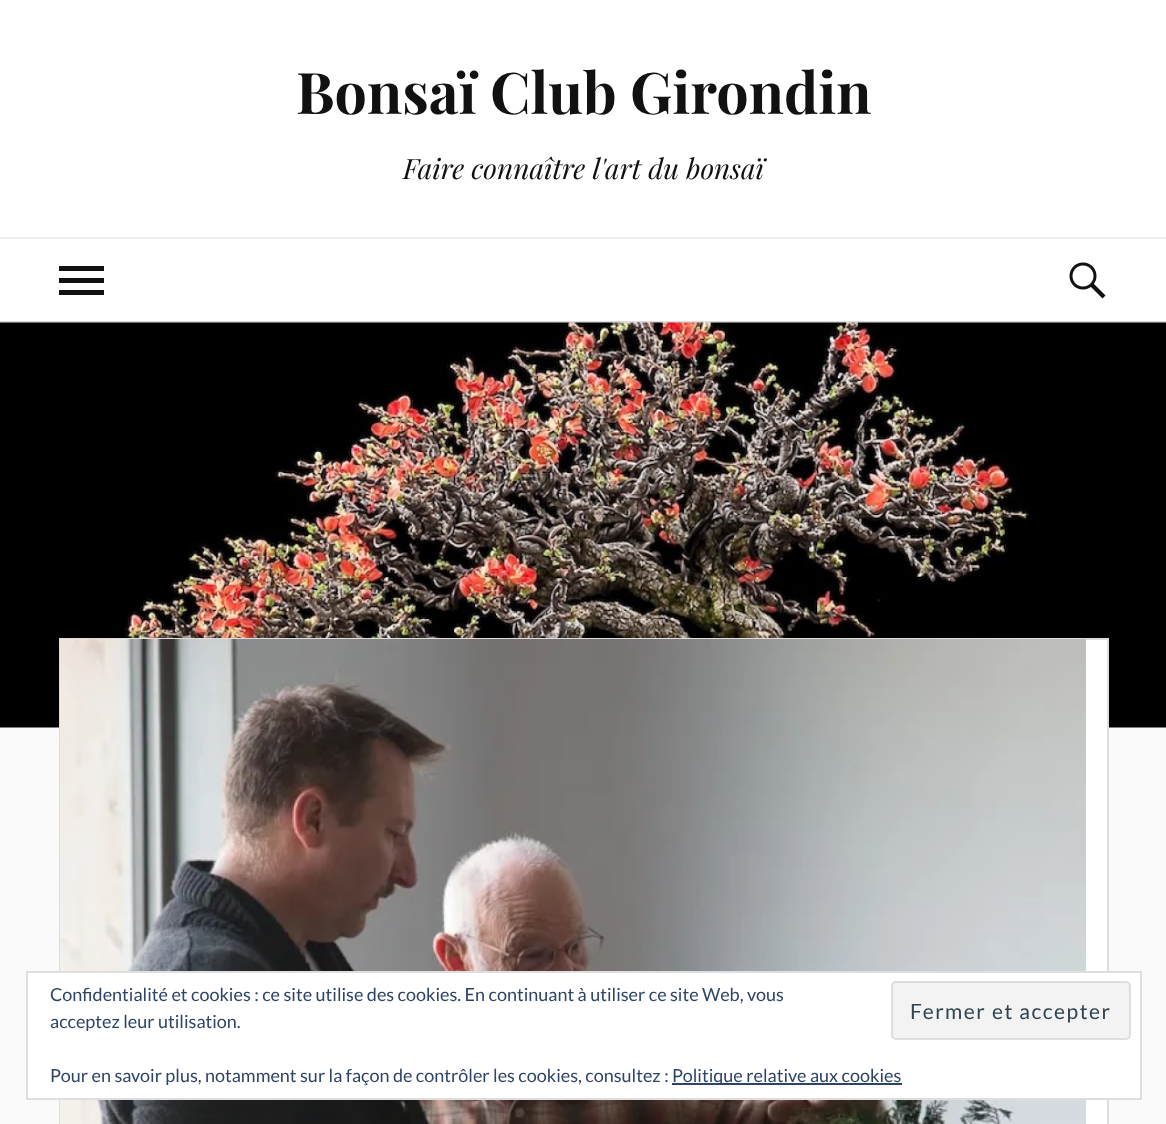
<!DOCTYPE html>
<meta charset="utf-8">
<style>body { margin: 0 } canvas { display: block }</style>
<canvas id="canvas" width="1166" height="1124"></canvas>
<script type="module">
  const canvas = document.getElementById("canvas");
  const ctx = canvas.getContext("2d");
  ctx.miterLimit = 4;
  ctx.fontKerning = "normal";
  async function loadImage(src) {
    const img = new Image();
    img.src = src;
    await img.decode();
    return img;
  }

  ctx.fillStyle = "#fafafa";
  ctx.fillRect(0, 0, 1166, 1124);
  ctx.fillStyle = "#ffffff";
  ctx.fillRect(0, 0, 1166, 237);
  ctx.font = "bold 57.4px Playfair Display";
  ctx.fillStyle = "#111111";
  ctx.fillText("Bonsaï Club Girondin", 296, 114);
  ctx.font = "italic 28px Playfair Display";
  ctx.fillText("Faire connaître l'art du bonsaï", 403, 179);
  ctx.fillStyle = "#ffffff";
  ctx.fillRect(0, 239, 1166, 82);
  ctx.fillStyle = "#eeeeee";
  ctx.fillRect(0, 237, 1166, 2);
  ctx.fillStyle = "#111111";
  ctx.fillRect(59, 266, 45, 5);
  ctx.fillRect(59, 278, 45, 5);
  ctx.fillRect(59, 290, 45, 5);
  ctx.drawImage(await loadImage("img1.png"), 1069, 262, 37, 37);
  ctx.fillStyle = "#dddddd";
  ctx.fillRect(0, 321, 1166, 2);
  ctx.drawImage(await loadImage("img2.png"), 0, 322, 1166, 406);
  ctx.fillStyle = "#ffffff";
  ctx.fillRect(1086, 640, 21, 484);
  ctx.strokeStyle = "#dddddd";
  ctx.lineWidth = 2;
  ctx.strokeRect(60, 639, 1048, 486);
  ctx.drawImage(await loadImage("img3.png"), 60, 639, 1026, 485);
  ctx.beginPath();
  ctx.rect(27, 972, 1114, 127);
  ctx.fill();
  ctx.strokeStyle = "#dedede";
  ctx.stroke();
  ctx.font = "18px Lato";
  ctx.fillStyle = "#2e4467";
  ctx.fillText("Confidentialité et cookies : ce site utilise des cookies. En continuant à utiliser ce site Web, vous", 50, 1001);
  ctx.fillText("acceptez leur utilisation.", 50, 1028);
  ctx.fillStyle = "#f3f3f3";
  ctx.beginPath();
  ctx.roundRect(892, 982, 238, 57, 4);
  ctx.fill();
  ctx.stroke();
  ctx.letterSpacing = "1.5px";
  ctx.font = "21px Lato";
  ctx.fillStyle = "#2e4453";
  ctx.fillText("Fermer et accepter", 910, 1019);
  ctx.letterSpacing = "0px";
  ctx.font = "18px Lato";
  ctx.fillStyle = "#2e4467";
  ctx.fillText("Pour en savoir plus, notamment sur la façon de contrôler les cookies, consultez :", 50, 1082);
  ctx.fillRect(672, 1083, 230, 2);
  ctx.fillText("Politique relative aux cookies", 672, 1082);
</script>
